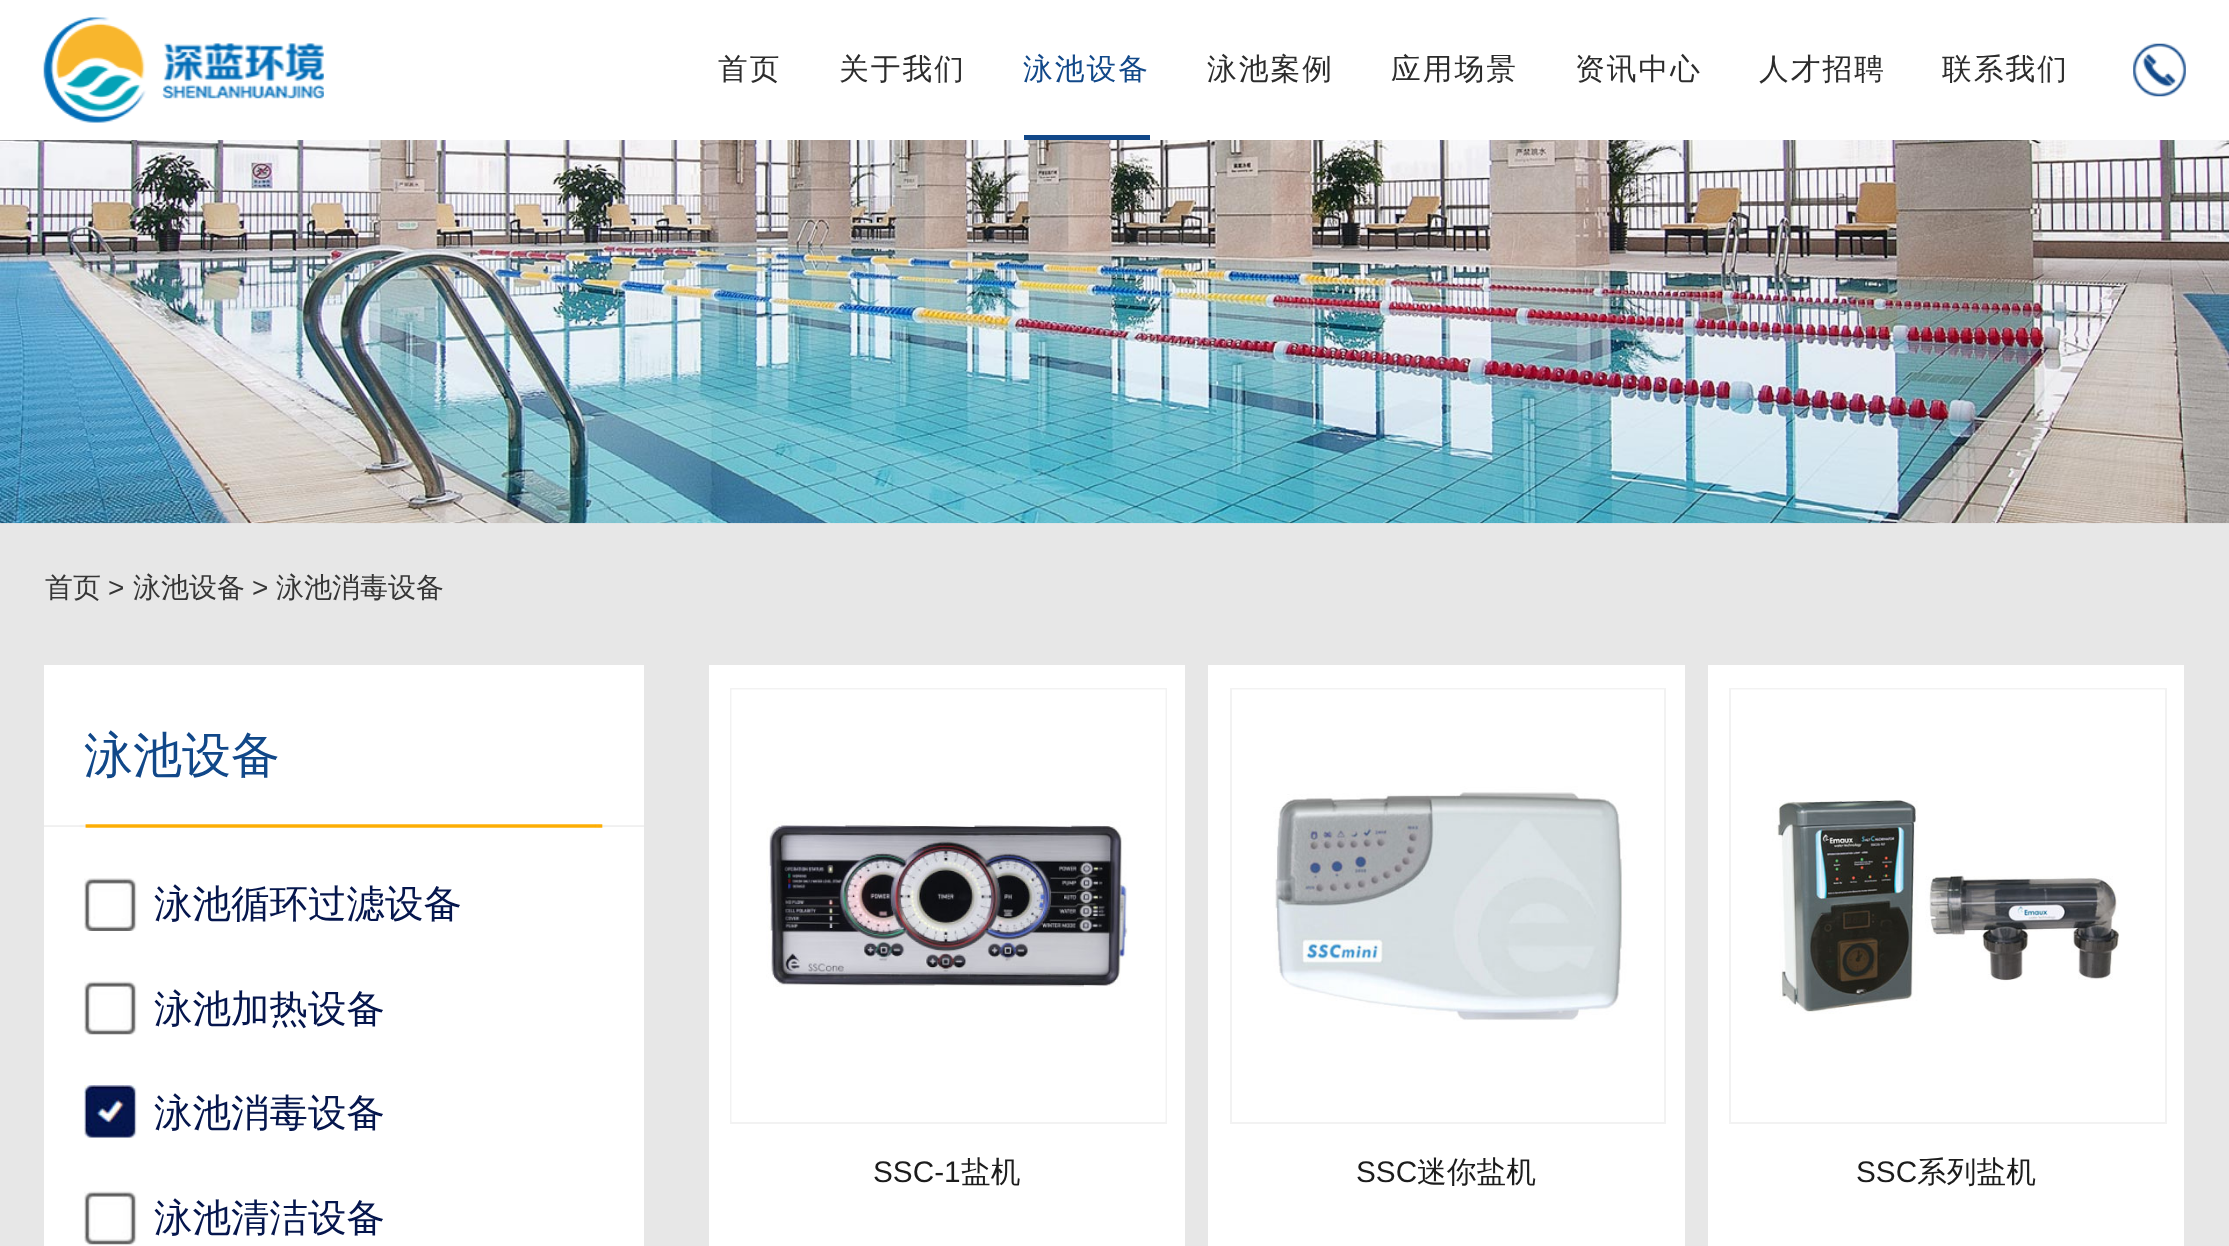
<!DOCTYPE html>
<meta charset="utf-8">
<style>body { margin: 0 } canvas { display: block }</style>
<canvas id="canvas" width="2229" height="1246"></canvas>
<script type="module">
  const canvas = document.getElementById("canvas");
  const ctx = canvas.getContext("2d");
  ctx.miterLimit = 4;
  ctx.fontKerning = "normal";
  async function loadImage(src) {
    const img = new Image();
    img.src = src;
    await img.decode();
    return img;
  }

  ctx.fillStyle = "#e7e7e7";
  ctx.fillRect(0, 0, 2229, 1246);
  ctx.fillStyle = "#ffffff";
  ctx.fillRect(0, 0, 2229, 140);
  ctx.drawImage(await loadImage("img1.png"), 43, 17, 281, 106);
  ctx.letterSpacing = "2px";
  ctx.font = "500 29.75px WenQuanYi Zen Hei";
  ctx.fillStyle = "#2c2c2c";
  ctx.fillText("首页", 718, 79);
  ctx.fillText("关于我们", 839, 79);
  ctx.fillStyle = "#114889";
  ctx.fillRect(1024, 135, 126, 5);
  ctx.fillText("泳池设备", 1023, 79);
  ctx.fillStyle = "#2c2c2c";
  ctx.fillText("泳池案例", 1207, 79);
  ctx.fillText("应用场景", 1391, 79);
  ctx.fillText("资讯中心", 1575, 79);
  ctx.fillText("人才招聘", 1759, 79);
  ctx.fillText("联系我们", 1942, 79);
  ctx.drawImage(await loadImage("img2.png"), 2133, 43, 53, 54);
  ctx.drawImage(await loadImage("img3.png"), 0, 140, 2229, 384);
  ctx.letterSpacing = "0px";
  ctx.font = "500 28px WenQuanYi Zen Hei";
  ctx.fillStyle = "#363636";
  ctx.fillText("首页", 45, 597);
  ctx.font = "28px Liberation Sans";
  ctx.fillText(">", 108, 597);
  ctx.font = "500 28px WenQuanYi Zen Hei";
  ctx.fillText("泳池设备", 133, 597);
  ctx.font = "28px Liberation Sans";
  ctx.fillText(">", 252, 597);
  ctx.font = "500 28px WenQuanYi Zen Hei";
  ctx.fillText("泳池消毒设备", 276, 597);
  ctx.fillStyle = "#ffffff";
  ctx.fillRect(44, 665, 600, 581);
  ctx.font = "500 49px WenQuanYi Zen Hei";
  ctx.fillStyle = "#114889";
  ctx.fillText("泳池设备", 84, 772);
  ctx.drawImage(await loadImage("img4.png"), 44, 824, 600, 4);
  ctx.drawImage(await loadImage("img5.png"), 84, 878, 53, 53);
  ctx.font = "500 38.5px WenQuanYi Zen Hei";
  ctx.fillStyle = "#05164d";
  ctx.fillText("泳池循环过滤设备", 154, 917);
  ctx.drawImage(await loadImage("img6.png"), 84, 981, 53, 54);
  ctx.fillText("泳池加热设备", 154, 1022);
  ctx.drawImage(await loadImage("img7.png"), 84, 1085, 53, 53);
  ctx.fillText("泳池消毒设备", 154, 1126);
  ctx.drawImage(await loadImage("img8.png"), 84, 1191, 53, 54);
  ctx.fillText("泳池清洁设备", 154, 1231);
  ctx.fillStyle = "#ffffff";
  ctx.fillRect(709, 665, 476, 581);
  ctx.strokeStyle = "#f2f2f2";
  ctx.lineWidth = 2;
  ctx.strokeRect(731, 689, 435, 434);
  ctx.drawImage(await loadImage("img9.png"), 731, 689, 435, 433);
  ctx.font = "29.75px Liberation Sans";
  ctx.fillStyle = "#1c1c1c";
  ctx.fillText("SSC-1", 873, 1182);
  ctx.font = "500 29.75px WenQuanYi Zen Hei";
  ctx.fillText("盐机", 961, 1182);
  ctx.fillStyle = "#ffffff";
  ctx.fillRect(1208, 665, 477, 581);
  ctx.strokeRect(1231, 689, 434, 434);
  ctx.drawImage(await loadImage("img10.png"), 1232, 689, 432, 332);
  ctx.font = "29.75px Liberation Sans";
  ctx.fillStyle = "#1c1c1c";
  ctx.fillText("SSC", 1356, 1182);
  ctx.font = "500 29.75px WenQuanYi Zen Hei";
  ctx.fillText("迷你盐机", 1417, 1182);
  ctx.fillStyle = "#ffffff";
  ctx.fillRect(1708, 665, 476, 581);
  ctx.strokeRect(1730, 689, 436, 434);
  ctx.drawImage(await loadImage("img11.png"), 1731, 689, 434, 325);
  ctx.font = "29.75px Liberation Sans";
  ctx.fillStyle = "#1c1c1c";
  ctx.fillText("SSC", 1856, 1182);
  ctx.font = "500 29.75px WenQuanYi Zen Hei";
  ctx.fillText("系列盐机", 1917, 1182);
</script>
